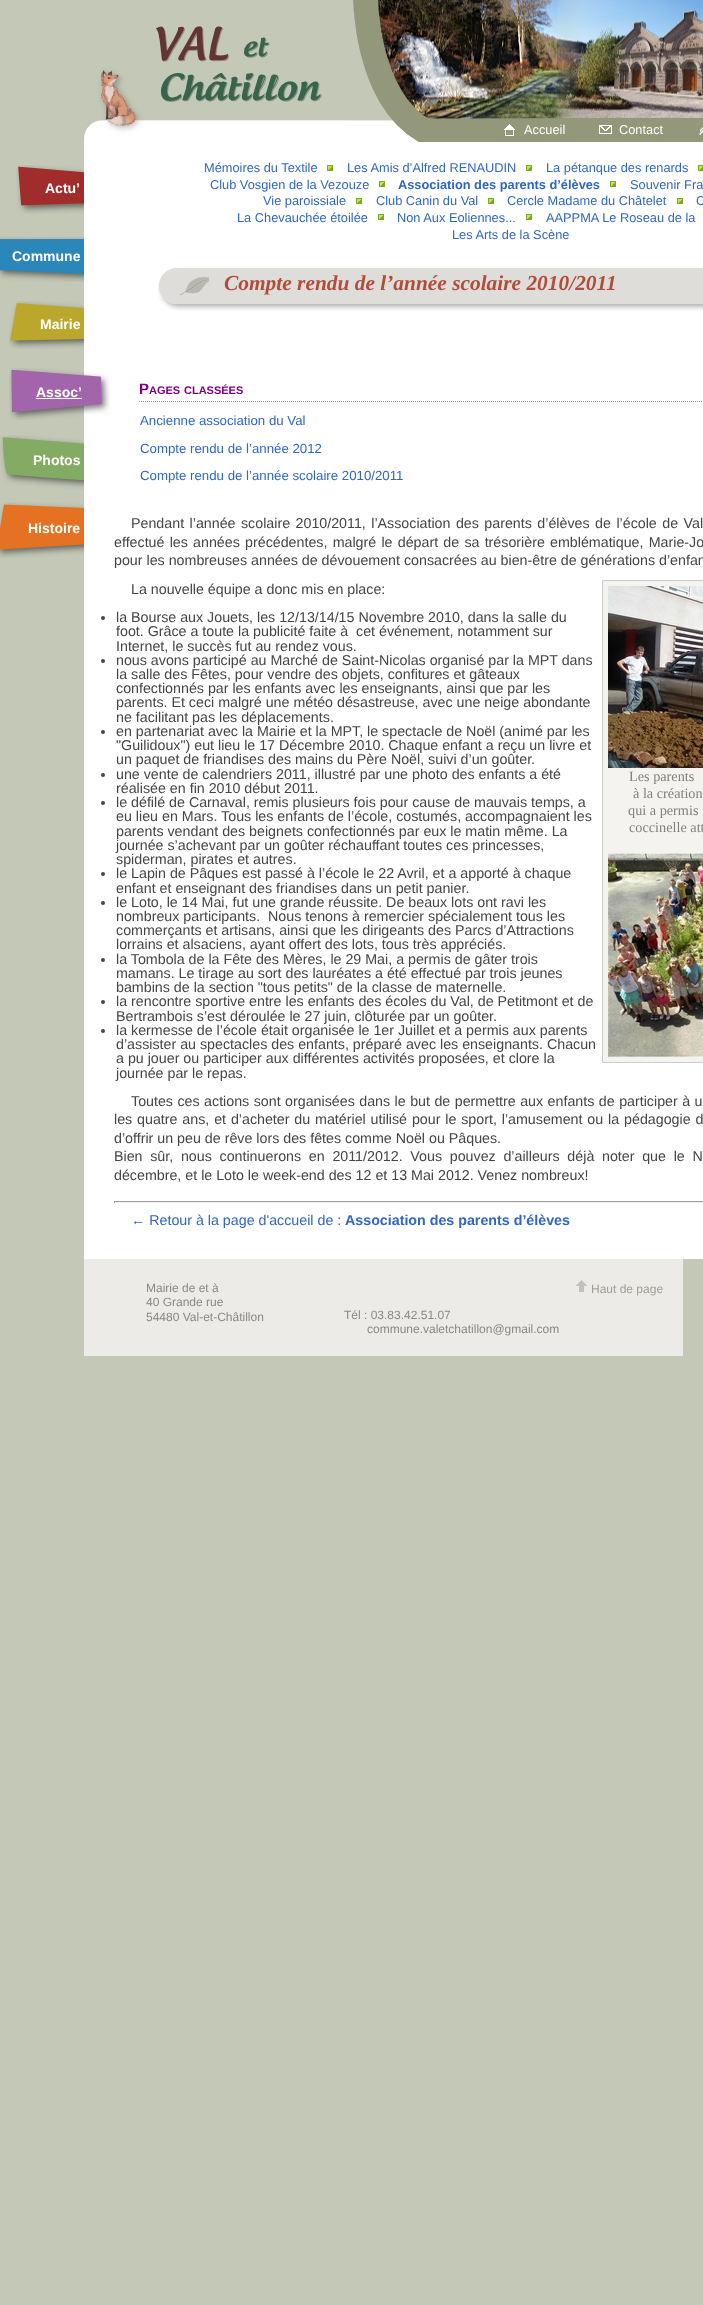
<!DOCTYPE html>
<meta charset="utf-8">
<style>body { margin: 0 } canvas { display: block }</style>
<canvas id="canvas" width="703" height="2305"></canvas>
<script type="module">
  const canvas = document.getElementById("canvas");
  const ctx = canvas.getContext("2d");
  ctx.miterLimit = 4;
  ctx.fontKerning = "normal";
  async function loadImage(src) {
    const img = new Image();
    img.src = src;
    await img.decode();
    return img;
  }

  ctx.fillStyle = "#c4c8b7";
  ctx.fillRect(0, 0, 703, 2305);
  ctx.fillStyle = "#ffffff";
  ctx.fillRect(84, 142, 619, 1117);
  ctx.drawImage(await loadImage("img1.png"), 84, 0, 619, 142);
  ctx.drawImage(await loadImage("img2.png"), 504, 124, 11, 12);
  ctx.font = "12.8px Liberation Sans";
  ctx.fillText("Accueil", 524, 134);
  ctx.drawImage(await loadImage("img3.png"), 599, 125, 13, 9);
  ctx.fillText("Contact", 619, 134);
  ctx.drawImage(await loadImage("img4.png"), 699, 127, 4, 8);
  ctx.drawImage(await loadImage("img5.png"), 16, 165, 68, 49);
  ctx.font = "bold 14px Liberation Sans";
  ctx.fillText("Actu’", 45, 193);
  ctx.drawImage(await loadImage("img6.png"), 0, 236, 84, 46);
  ctx.fillText("Commune", 12, 261);
  ctx.drawImage(await loadImage("img7.png"), 9, 301, 75, 48);
  ctx.fillText("Mairie", 40, 329);
  ctx.drawImage(await loadImage("img8.png"), 9, 368, 101, 52);
  ctx.fillText("Assoc’", 36, 397);
  ctx.fillRect(36, 398, 46, 1);
  ctx.drawImage(await loadImage("img9.png"), 0, 435, 84, 54);
  ctx.fillText("Photos", 33, 465);
  ctx.drawImage(await loadImage("img10.png"), 0, 502, 84, 56);
  ctx.fillText("Histoire", 28, 533);
  ctx.font = "12.8px Liberation Sans";
  ctx.fillStyle = "#3066c7";
  ctx.fillText("Mémoires du Textile", 204, 172);
  ctx.drawImage(await loadImage("img11.png"), 327, 165, 6, 6);
  ctx.fillText("Les Amis d’Alfred RENAUDIN", 347, 172);
  ctx.drawImage(await loadImage("img11.png"), 526, 165, 6, 6);
  ctx.fillText("La pétanque des renards", 546, 172);
  ctx.drawImage(await loadImage("img12.png"), 698, 165, 5, 6);
  ctx.fillText("Club Vosgien de la Vezouze", 210, 189);
  ctx.drawImage(await loadImage("img11.png"), 379, 181, 6, 6);
  ctx.font = "bold 12.8px Liberation Sans";
  ctx.fillText("Association des parents d’élèves", 398, 189);
  ctx.drawImage(await loadImage("img11.png"), 610, 181, 6, 6);
  ctx.font = "12.8px Liberation Sans";
  ctx.fillText("Souvenir Fra", 630, 189);
  ctx.fillText("Vie paroissiale", 263, 205);
  ctx.drawImage(await loadImage("img11.png"), 356, 198, 6, 6);
  ctx.fillText("Club Canin du Val", 376, 205);
  ctx.drawImage(await loadImage("img11.png"), 488, 198, 6, 6);
  ctx.fillText("Cercle Madame du Châtelet", 507, 205);
  ctx.drawImage(await loadImage("img11.png"), 677, 198, 6, 6);
  ctx.fillText("C", 696, 205);
  ctx.fillText("La Chevauchée étoilée", 237, 222);
  ctx.drawImage(await loadImage("img11.png"), 378, 214, 6, 6);
  ctx.fillText("Non Aux Eoliennes...", 397, 222);
  ctx.drawImage(await loadImage("img11.png"), 526, 214, 6, 6);
  ctx.fillText("AAPPMA Le Roseau de la", 546, 222);
  ctx.fillText("Les Arts de la Scène", 452, 239);
  ctx.drawImage(await loadImage("img13.png"), 157, 267, 546, 44);
  ctx.font = "italic bold 21.4px Liberation Serif";
  ctx.fillStyle = "#b14d3b";
  ctx.fillText("Compte rendu de l’année scolaire 2010/2011", 224, 290);
  ctx.beginPath();
  ctx.moveTo(139, 401.5);
  ctx.lineTo(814, 401.5);
  ctx.strokeStyle = "#8c8c8c";
  ctx.setLineDash([1, 1]);
  ctx.stroke();
  ctx.font = "bold 15px Liberation Sans";
  ctx.fillStyle = "#800080";
  ctx.fillText("P", 139, 394);
  ctx.font = "bold 11px Liberation Sans";
  ctx.fillText("AGES", 149, 394);
  ctx.fillText("CLASSÉES", 184, 394);
  ctx.font = "13.25px Liberation Sans";
  ctx.fillStyle = "#3066c7";
  ctx.fillText("Ancienne association du Val", 140, 425);
  ctx.fillText("Compte rendu de l’année 2012", 140, 453);
  ctx.fillText("Compte rendu de l’année scolaire 2010/2011", 140, 480);
  ctx.wordSpacing = "1.5px";
  ctx.font = "14.25px Liberation Sans";
  ctx.fillStyle = "#454545";
  ctx.fillText("Pendant l’année scolaire 2010/2011, l’Association des parents d’élèves de l’école de Val", 131, 528);
  ctx.wordSpacing = "1.25px";
  ctx.fillText("effectué les années précédentes, malgré le départ de sa trésorière emblématique, Marie-Jo", 114, 547);
  ctx.wordSpacing = "0px";
  ctx.fillText("pour les nombreuses années de dévouement consacrées au bien-être de générations d’enfan", 114, 565);
  ctx.fillText("La nouvelle équipe a donc mis en place:", 131, 594);
  ctx.beginPath();
  ctx.arc(103, 618, 2, 0, Math.PI * 2);
  ctx.fill();
  ctx.fillText("la Bourse aux Jouets, les 12/13/14/15 Novembre 2010, dans la salle du", 116, 622);
  ctx.fillText("foot. Grâce a toute la publicité faite à  cet événement, notamment sur", 116, 636);
  ctx.fillText("Internet, le succès fut au rendez vous.", 116, 651);
  ctx.beginPath();
  ctx.arc(103, 661, 2, 0, Math.PI * 2);
  ctx.fill();
  ctx.fillText("nous avons participé au Marché de Saint-Nicolas organisé par la MPT dans", 116, 665);
  ctx.fillText("la salle des Fêtes, pour vendre des objets, confitures et gâteaux", 116, 679);
  ctx.fillText("confectionnés par les enfants avec les enseignants, ainsi que par les", 116, 693);
  ctx.fillText("parents. Et ceci malgré une météo désastreuse, avec une neige abondante", 116, 707);
  ctx.fillText("ne facilitant pas les déplacements.", 116, 722);
  ctx.beginPath();
  ctx.arc(103, 732, 2, 0, Math.PI * 2);
  ctx.fill();
  ctx.fillText("en partenariat avec la Mairie et la MPT, le spectacle de Noël (animé par les", 116, 736);
  ctx.fillText("\"Guilidoux\") eut lieu le 17 Décembre 2010. Chaque enfant a reçu un livre et", 116, 750);
  ctx.fillText("un paquet de friandises des mains du Père Noël, suivi d’un goûter.", 116, 764);
  ctx.beginPath();
  ctx.arc(103, 775, 2, 0, Math.PI * 2);
  ctx.fill();
  ctx.fillText("une vente de calendriers 2011, illustré par une photo des enfants a été", 116, 779);
  ctx.fillText("réalisée en fin 2010 début 2011.", 116, 793);
  ctx.beginPath();
  ctx.arc(103, 803, 2, 0, Math.PI * 2);
  ctx.fill();
  ctx.fillText("le défilé de Carnaval, remis plusieurs fois pour cause de mauvais temps, a", 116, 807);
  ctx.fillText("eu lieu en Mars. Tous les enfants de l’école, costumés, accompagnaient les", 116, 821);
  ctx.fillText("parents vendant des beignets confectionnés par eux le matin même. La", 116, 836);
  ctx.fillText("journée s’achevant par un goûter réchauffant toutes ces princesses,", 116, 850);
  ctx.fillText("spiderman, pirates et autres.", 116, 864);
  ctx.beginPath();
  ctx.arc(103, 874, 2, 0, Math.PI * 2);
  ctx.fill();
  ctx.fillText("le Lapin de Pâques est passé à l’école le 22 Avril, et a apporté à chaque", 116, 878);
  ctx.fillText("enfant et enseignant des friandises dans un petit panier.", 116, 893);
  ctx.beginPath();
  ctx.arc(103, 903, 2, 0, Math.PI * 2);
  ctx.fill();
  ctx.fillText("le Loto, le 14 Mai, fut une grande réussite. De beaux lots ont ravi les", 116, 907);
  ctx.fillText("nombreux participants.  Nous tenons à remercier spécialement tous les", 116, 921);
  ctx.fillText("commerçants et artisans, ainsi que les dirigeants des Parcs d’Attractions", 116, 935);
  ctx.fillText("lorrains et alsaciens, ayant offert des lots, tous très appréciés.", 116, 949);
  ctx.beginPath();
  ctx.arc(103, 960, 2, 0, Math.PI * 2);
  ctx.fill();
  ctx.fillText("la Tombola de la Fête des Mères, le 29 Mai, a permis de gâter trois", 116, 964);
  ctx.fillText("mamans. Le tirage au sort des lauréates a été effectué par trois jeunes", 116, 978);
  ctx.fillText("bambins de la section \"tous petits\" de la classe de maternelle.", 116, 992);
  ctx.beginPath();
  ctx.arc(103, 1002, 2, 0, Math.PI * 2);
  ctx.fill();
  ctx.fillText("la rencontre sportive entre les enfants des écoles du Val, de Petitmont et de", 116, 1006);
  ctx.fillText("Bertrambois s’est déroulée le 27 juin, clôturée par un goûter.", 116, 1021);
  ctx.beginPath();
  ctx.arc(103, 1031, 2, 0, Math.PI * 2);
  ctx.fill();
  ctx.fillText("la kermesse de l’école était organisée le 1er Juillet et a permis aux parents", 116, 1035);
  ctx.fillText("d’assister au spectacles des enfants, préparé avec les enseignants. Chacun", 116, 1049);
  ctx.fillText("a pu jouer ou participer aux différentes activités proposées, et clore la", 116, 1063);
  ctx.fillText("journée par le repas.", 116, 1078);
  ctx.fillStyle = "#f5f3ef";
  ctx.beginPath();
  ctx.rect(602.5, 580.5, 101, 482);
  ctx.fill();
  ctx.strokeStyle = "#cccccc";
  ctx.setLineDash([]);
  ctx.stroke();
  ctx.drawImage(await loadImage("img14.png"), 608, 586, 95, 182);
  ctx.font = "14.25px Liberation Serif";
  ctx.fillStyle = "#808080";
  ctx.fillText("Les parents", 629, 781);
  ctx.fillText("à la création", 633, 798);
  ctx.fillText("qui a permis", 628, 815);
  ctx.fillText("coccinelle att", 629, 832);
  ctx.drawImage(await loadImage("img15.png"), 608, 853, 95, 204);
  ctx.wordSpacing = "0.5px";
  ctx.font = "14.25px Liberation Sans";
  ctx.fillStyle = "#454545";
  ctx.fillText("Toutes ces actions sont organisées dans le but de permettre aux enfants de participer à u", 131, 1106);
  ctx.wordSpacing = "0.9px";
  ctx.fillText("les quatre ans, et d’acheter du matériel utilisé pour le sport, l’amusement ou la pédagogie d", 114, 1124);
  ctx.wordSpacing = "0px";
  ctx.fillText("d’offrir un peu de rêve lors des fêtes comme Noël ou Pâques.", 114, 1143);
  ctx.wordSpacing = "3.75px";
  ctx.fillText("Bien sûr, nous continuerons en 2011/2012. Vous pouvez d’ailleurs déjà noter que le N", 114, 1161);
  ctx.wordSpacing = "0px";
  ctx.fillText("décembre, et le Loto le week-end des 12 et 13 Mai 2012. Venez nombreux!", 114, 1180);
  ctx.fillStyle = "#9f9f9f";
  ctx.fillRect(114, 1201, 589, 1);
  ctx.fillStyle = "#eeeeee";
  ctx.fillRect(114, 1202, 589, 1);
  ctx.fillStyle = "#9f9f9f";
  ctx.fillRect(114, 1201, 1, 2);
  ctx.fillStyle = "#3066c7";
  ctx.fillText("← Retour à la page d'accueil de :", 131, 1225);
  ctx.font = "bold 14.25px Liberation Sans";
  ctx.fillText("Association des parents d’élèves", 345, 1225);
  ctx.fillStyle = "#edebe7";
  ctx.fillRect(84, 1259, 599, 97);
  ctx.font = "12px Liberation Sans";
  ctx.fillStyle = "#888888";
  ctx.fillText("Mairie de et à", 146, 1292);
  ctx.fillText("40 Grande rue", 146, 1306);
  ctx.fillText("54480 Val-et-Châtillon", 146, 1321);
  ctx.fillText("Tél : 03.83.42.51.07", 344, 1319);
  ctx.fillText("commune.valetchatillon@gmail.com", 367, 1333);
  ctx.drawImage(await loadImage("img16.png"), 576, 1280, 11, 12);
  ctx.fillStyle = "#9f9d96";
  ctx.fillText("Haut de page", 591, 1293);
</script>
